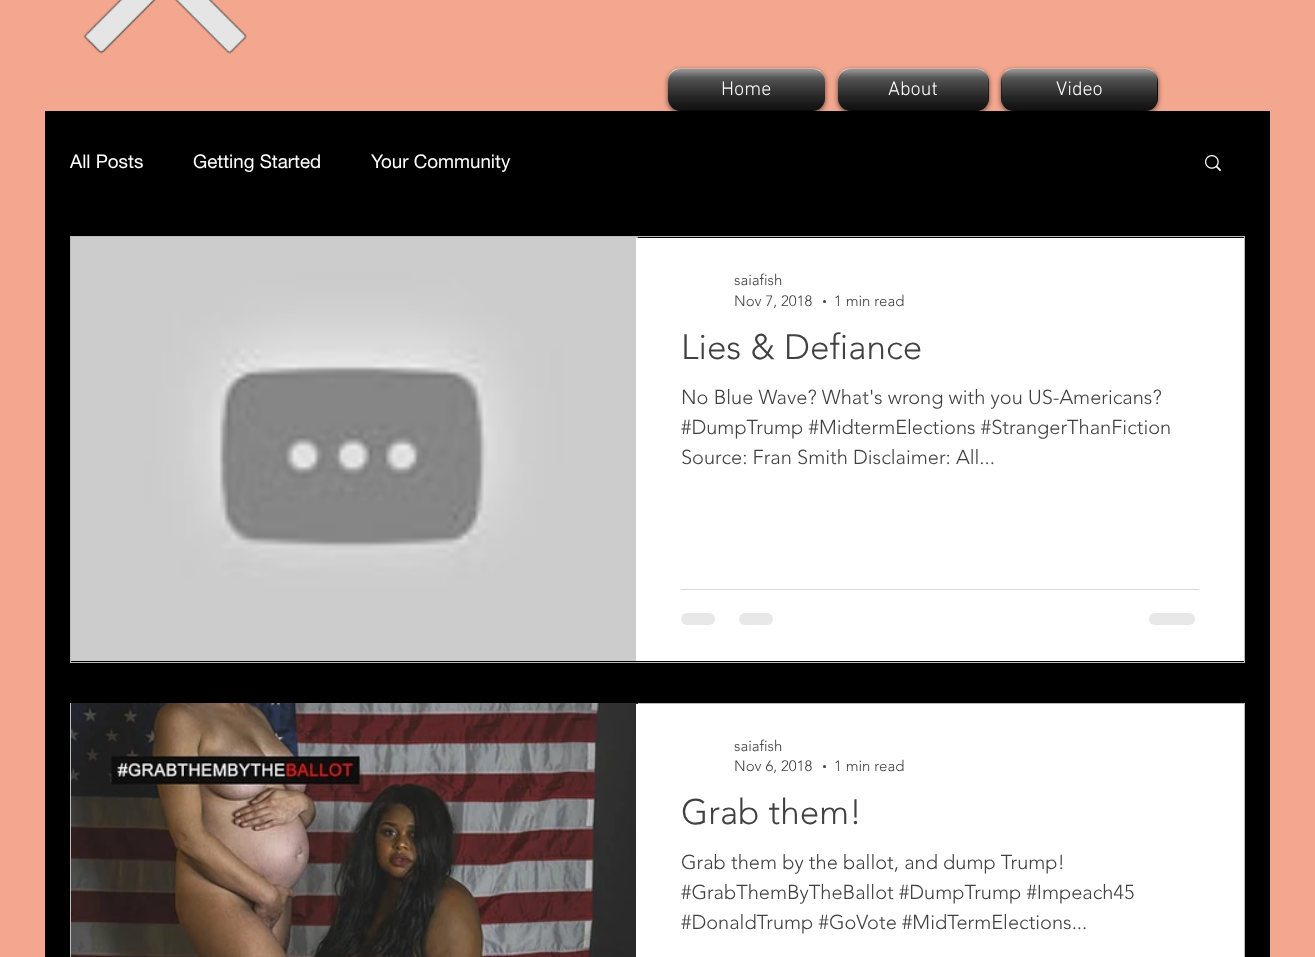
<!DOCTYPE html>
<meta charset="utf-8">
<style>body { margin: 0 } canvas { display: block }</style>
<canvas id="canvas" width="1315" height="957"></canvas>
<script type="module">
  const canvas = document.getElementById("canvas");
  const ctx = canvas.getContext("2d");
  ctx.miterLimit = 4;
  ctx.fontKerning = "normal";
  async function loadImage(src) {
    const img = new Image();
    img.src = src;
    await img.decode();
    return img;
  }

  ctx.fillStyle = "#f3a78f";
  ctx.fillRect(0, 0, 1315, 957);
  ctx.drawImage(await loadImage("img1.png"), 83, 0, 164, 54);
  ctx.fillStyle = "rgba(0, 0, 0, 0.6)";
  ctx.filter = "blur(2.5px)";
  ctx.beginPath();
  ctx.roundRect(668, 70, 157, 43, 13);
  ctx.fill();
  ctx.filter = "none";
  ctx.fillStyle = "#000000";
  ctx.beginPath();
  ctx.roundRect(668, 69, 157, 42, 13);
  ctx.fill();
  ctx.drawImage(await loadImage("img2.png"), 667, 68, 158, 43);
  ctx.drawImage(await loadImage("img3.png"), 667, 69, 158, 42);
  ctx.font = "300 20px 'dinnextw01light'";
  ctx.fillStyle = "#ffffff";
  ctx.fillText("Home", 721, 95);
  ctx.fillStyle = "rgba(0, 0, 0, 0.6)";
  ctx.filter = "blur(2.5px)";
  ctx.beginPath();
  ctx.roundRect(838, 70, 151, 43, 13);
  ctx.fill();
  ctx.filter = "none";
  ctx.fillStyle = "#000000";
  ctx.beginPath();
  ctx.roundRect(838, 69, 151, 42, 13);
  ctx.fill();
  ctx.drawImage(await loadImage("img4.png"), 837, 68, 152, 43);
  ctx.drawImage(await loadImage("img5.png"), 837, 69, 151, 42);
  ctx.fillStyle = "#ffffff";
  ctx.fillText("About", 888, 95);
  ctx.fillStyle = "rgba(0, 0, 0, 0.6)";
  ctx.filter = "blur(2.5px)";
  ctx.beginPath();
  ctx.roundRect(1001, 70, 157, 43, 13);
  ctx.fill();
  ctx.filter = "none";
  ctx.fillStyle = "#000000";
  ctx.beginPath();
  ctx.roundRect(1001, 69, 157, 42, 13);
  ctx.fill();
  ctx.drawImage(await loadImage("img6.png"), 1001, 68, 157, 43);
  ctx.drawImage(await loadImage("img7.png"), 1002, 69, 155, 41);
  ctx.fillStyle = "#ffffff";
  ctx.fillText("Video", 1056, 95);
  ctx.fillStyle = "#000000";
  ctx.fillRect(45, 111, 1225, 846);
  ctx.font = "18.75px helvetica neue";
  ctx.fillStyle = "#ffffff";
  ctx.fillText("All Posts", 70, 168);
  ctx.fillText("Getting Started", 193, 168);
  ctx.fillText("Your Community", 371, 168);
  ctx.drawImage(await loadImage("img8.png"), 1205, 155, 16, 16);
  ctx.strokeStyle = "#bbbbbb";
  ctx.strokeRect(70.5, 236.5, 1174, 426);
  ctx.drawImage(await loadImage("img9.png"), 71, 237, 566, 424);
  ctx.fillStyle = "#989898";
  ctx.fillRect(637, 237, 1, 1);
  ctx.fillStyle = "#ffffff";
  ctx.fillRect(636, 238, 608, 423);
  ctx.font = "300 15px 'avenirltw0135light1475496'";
  ctx.fillStyle = "#414141";
  ctx.fillText("saiafish", 734, 285);
  ctx.fillText("Nov 7, 2018", 734, 306);
  ctx.beginPath();
  ctx.arc(824.5, 301.5, 1.5, 0, Math.PI * 2);
  ctx.fill();
  ctx.fillText("1 min read", 834, 306);
  ctx.font = "300 35px 'avenirltw0135light1475496'";
  ctx.fillText("Lies & Defiance", 681, 359);
  ctx.font = "300 20px 'avenirltw0135light1475496'";
  ctx.fillText("No Blue Wave? What's wrong with you US-Americans?", 681, 404);
  ctx.fillText("#DumpTrump #MidtermElections #StrangerThanFiction", 681, 434);
  ctx.fillText("Source: Fran Smith Disclaimer: All...", 681, 464);
  ctx.fillStyle = "#d9d9d9";
  ctx.fillRect(681, 589, 518, 1);
  ctx.fillStyle = "#e8e8e8";
  ctx.beginPath();
  ctx.roundRect(681, 613, 34, 12, 6);
  ctx.fill();
  ctx.beginPath();
  ctx.roundRect(739, 613, 34, 12, 6);
  ctx.fill();
  ctx.beginPath();
  ctx.roundRect(1149, 613, 46, 12, 6);
  ctx.fill();
  ctx.strokeRect(70.5, 703.5, 1174, 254);
  ctx.drawImage(await loadImage("img10.png"), 71, 703, 567, 254);
  ctx.fillStyle = "#ffffff";
  ctx.fillRect(636, 704, 608, 253);
  ctx.font = "300 15px 'avenirltw0135light1475496'";
  ctx.fillStyle = "#414141";
  ctx.fillText("saiafish", 734, 751);
  ctx.fillText("Nov 6, 2018", 734, 771);
  ctx.beginPath();
  ctx.arc(824.5, 766.5, 1.5, 0, Math.PI * 2);
  ctx.fill();
  ctx.fillText("1 min read", 834, 771);
  ctx.font = "300 35px 'avenirltw0135light1475496'";
  ctx.fillText("Grab them!", 681, 824);
  ctx.font = "300 20px 'avenirltw0135light1475496'";
  ctx.fillText("Grab them by the ballot, and dump Trump!", 681, 869);
  ctx.fillText("#GrabThemByTheBallot #DumpTrump #Impeach45", 681, 899);
  ctx.fillText("#DonaldTrump #GoVote #MidTermElections...", 681, 929);
</script>
